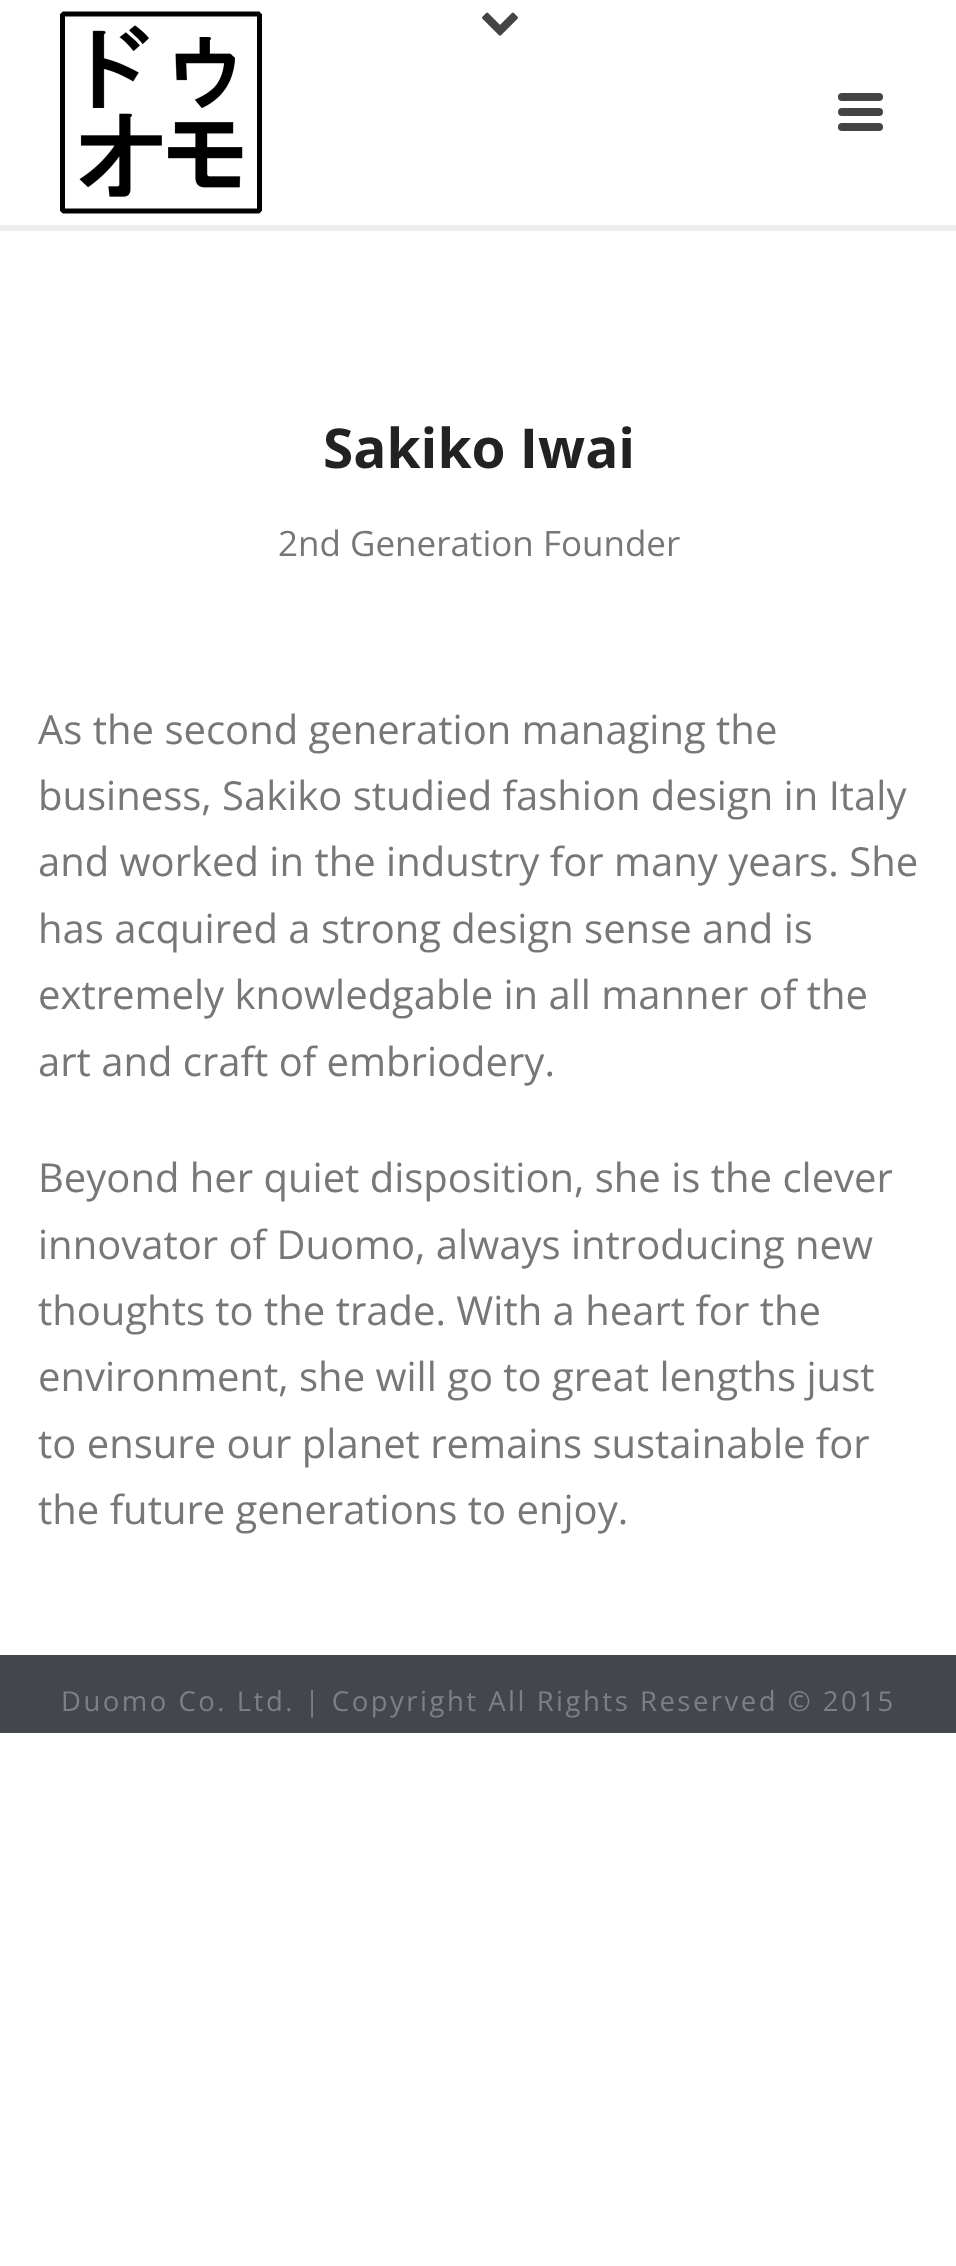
<!DOCTYPE html>
<meta charset="utf-8">
<style>body { margin: 0 } canvas { display: block }</style>
<canvas id="canvas" width="956" height="2266"></canvas>
<script type="module">
  const canvas = document.getElementById("canvas");
  const ctx = canvas.getContext("2d");
  ctx.miterLimit = 4;
  ctx.fontKerning = "normal";
  async function loadImage(src) {
    const img = new Image();
    img.src = src;
    await img.decode();
    return img;
  }

  ctx.fillStyle = "#ffffff";
  ctx.fillRect(0, 0, 956, 2266);
  ctx.fillStyle = "#ededed";
  ctx.fillRect(0, 225, 956, 6);
  ctx.drawImage(await loadImage("img1.png"), 60, 11, 202, 203);
  ctx.fillStyle = "#444444";
  ctx.beginPath();
  ctx.roundRect(838, 93, 45, 8, 4);
  ctx.fill();
  ctx.beginPath();
  ctx.roundRect(838, 108, 45, 8, 4);
  ctx.fill();
  ctx.beginPath();
  ctx.roundRect(838, 123, 45, 8, 4);
  ctx.fill();
  ctx.drawImage(await loadImage("img2.png"), 482, 12, 36, 24);
  ctx.font = "bold 55px Open Sans";
  ctx.fillStyle = "#222222";
  ctx.fillText("Sakiko Iwai", 323, 468);
  ctx.font = "35px Open Sans";
  ctx.fillStyle = "#777777";
  ctx.fillText("2nd Generation Founder", 278, 556);
  ctx.font = "40px Open Sans";
  ctx.fillText("As the second generation managing the", 38, 744);
  ctx.fillText("business, Sakiko studied fashion design in Italy", 38, 810);
  ctx.fillText("and worked in the industry for many years. She", 38, 876);
  ctx.fillText("has acquired a strong design sense and is", 38, 943);
  ctx.fillText("extremely knowledgable in all manner of the", 38, 1009);
  ctx.fillText("art and craft of embriodery.", 38, 1076);
  ctx.fillText("Beyond her quiet disposition, she is the clever", 38, 1192);
  ctx.fillText("innovator of Duomo, always introducing new", 38, 1259);
  ctx.fillText("thoughts to the trade. With a heart for the", 38, 1325);
  ctx.fillText("environment, she will go to great lengths just", 38, 1391);
  ctx.fillText("to ensure our planet remains sustainable for", 38, 1458);
  ctx.fillText("the future generations to enjoy.", 38, 1524);
  ctx.fillStyle = "#43474d";
  ctx.fillRect(0, 1655, 956, 78);
  ctx.letterSpacing = "2.5px";
  ctx.font = "27.5px Open Sans";
  ctx.fillStyle = "#7d8083";
  ctx.fillText("Duomo Co. Ltd. | Copyright All Rights Reserved © 2015", 61, 1711);
</script>
